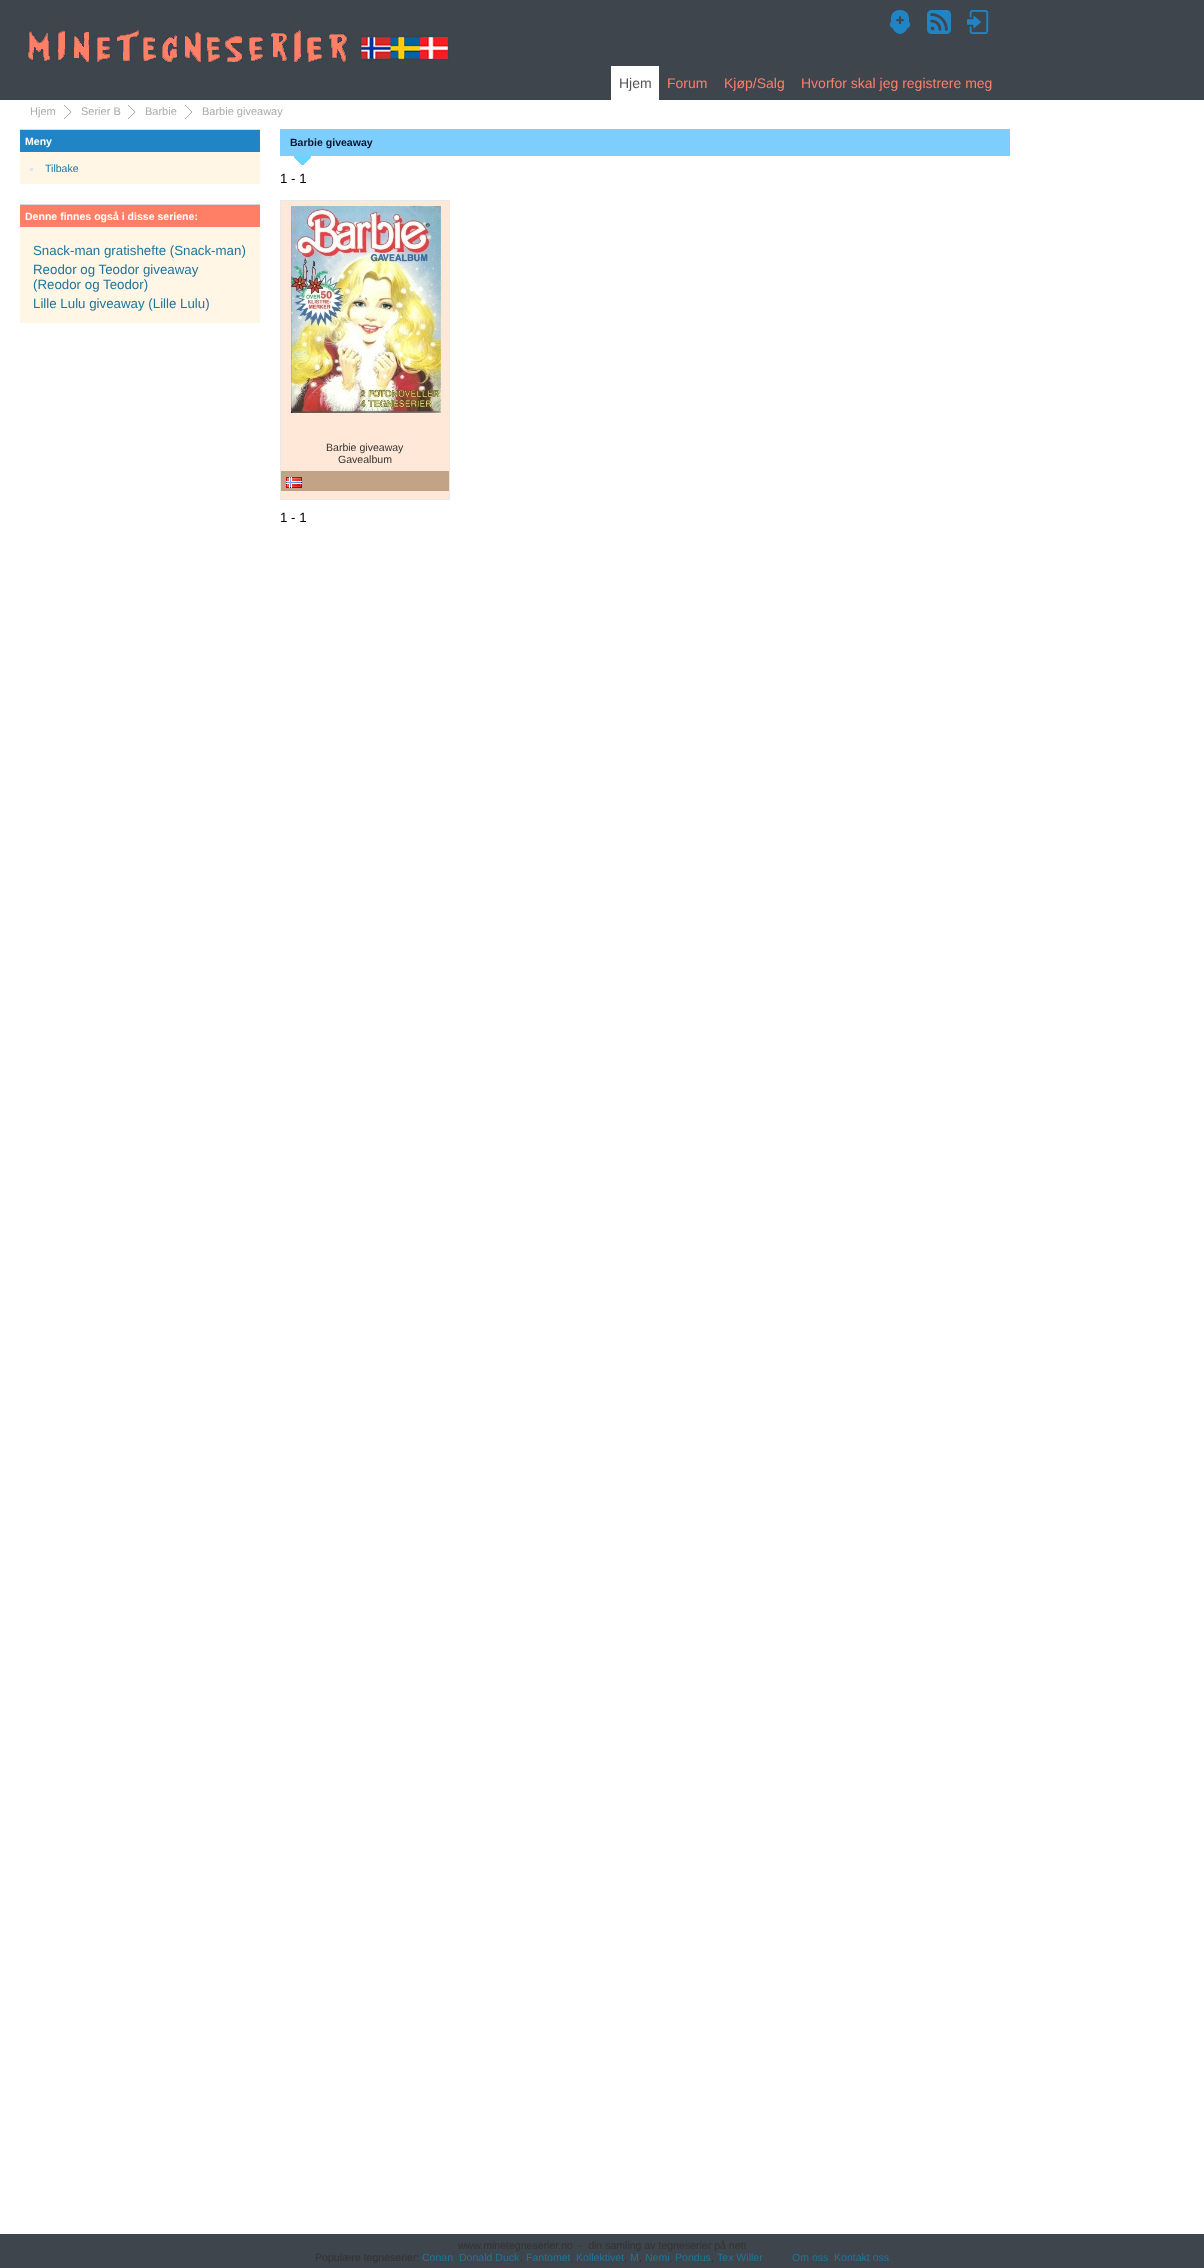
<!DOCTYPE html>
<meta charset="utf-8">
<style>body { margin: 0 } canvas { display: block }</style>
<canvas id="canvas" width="1204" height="2268"></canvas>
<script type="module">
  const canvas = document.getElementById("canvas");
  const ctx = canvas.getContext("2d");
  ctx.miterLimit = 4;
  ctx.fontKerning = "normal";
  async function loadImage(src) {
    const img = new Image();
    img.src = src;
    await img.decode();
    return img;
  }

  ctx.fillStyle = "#ffffff";
  ctx.fillRect(0, 0, 1204, 2268);
  ctx.fillStyle = "#3e454c";
  ctx.fillRect(0, 0, 1204, 100);
  ctx.drawImage(await loadImage("img1.png"), 889, 10, 22, 24);
  ctx.drawImage(await loadImage("img2.png"), 927, 10, 24, 24);
  ctx.drawImage(await loadImage("img3.png"), 966, 10, 23, 24);
  ctx.drawImage(await loadImage("img4.png"), 27, 30, 422, 33);
  ctx.fillStyle = "#ffffff";
  ctx.fillRect(611, 66, 48, 34);
  ctx.font = "14px Liberation Sans";
  ctx.fillStyle = "#555555";
  ctx.fillText("Hjem", 619, 88);
  ctx.fillStyle = "#ff7f66";
  ctx.fillText("Forum", 667, 88);
  ctx.fillText("Kjøp/Salg", 724, 88);
  ctx.fillText("Hvorfor skal jeg registrere meg", 801, 88);
  ctx.drawImage(await loadImage("img5.png"), 64, 105, 7, 14);
  ctx.font = "11px Liberation Sans";
  ctx.fillStyle = "#aaaaaa";
  ctx.fillText("Hjem", 30, 115);
  ctx.drawImage(await loadImage("img5.png"), 128, 105, 7, 14);
  ctx.fillText("Serier B", 81, 115);
  ctx.drawImage(await loadImage("img5.png"), 185, 105, 7, 14);
  ctx.fillText("Barbie", 145, 115);
  ctx.fillText("Barbie giveaway", 202, 115);
  ctx.fillStyle = "#2185c5";
  ctx.fillRect(20, 130, 240, 22);
  ctx.fillStyle = "#d9d9d9";
  ctx.fillRect(20, 129, 240, 1);
  ctx.font = "bold 10.55px Liberation Sans";
  ctx.fillStyle = "#ffffff";
  ctx.fillText("Meny", 25, 145);
  ctx.fillStyle = "#fff6e5";
  ctx.fillRect(20, 152, 240, 32);
  ctx.fillStyle = "#d3e7f8";
  ctx.fillRect(30, 168, 3, 3);
  ctx.font = "10.55px Liberation Sans";
  ctx.fillStyle = "#21759b";
  ctx.fillText("Tilbake", 45, 172);
  ctx.fillStyle = "#ff7f66";
  ctx.fillRect(20, 205, 240, 22);
  ctx.fillStyle = "#d9d9d9";
  ctx.fillRect(20, 204, 240, 1);
  ctx.font = "bold 10.55px Liberation Sans";
  ctx.fillStyle = "#ffffff";
  ctx.fillText("Denne finnes også i disse seriene:", 25, 220);
  ctx.fillStyle = "#fff6e5";
  ctx.fillRect(20, 227, 240, 96);
  ctx.font = "13.3px Liberation Sans";
  ctx.fillStyle = "#21759b";
  ctx.fillText("Snack-man gratishefte (Snack-man)", 33, 255);
  ctx.fillText("Reodor og Teodor giveaway", 33, 274);
  ctx.fillText("(Reodor og Teodor)", 33, 289);
  ctx.fillText("Lille Lulu giveaway (Lille Lulu)", 33, 308);
  ctx.fillStyle = "#7ecefd";
  ctx.fillRect(280, 129, 730, 27);
  ctx.drawImage(await loadImage("img6.png"), 280, 156, 730, 10);
  ctx.font = "bold 10.55px Liberation Sans";
  ctx.fillStyle = "#04142e";
  ctx.fillText("Barbie giveaway", 290, 146);
  ctx.font = "13.3px Liberation Sans";
  ctx.fillStyle = "#000000";
  ctx.fillText("1 - 1", 280, 183);
  ctx.fillStyle = "#ffe8d8";
  ctx.beginPath();
  ctx.rect(280.5, 200.5, 169, 299);
  ctx.fill();
  ctx.strokeStyle = "#e8e8e8";
  ctx.stroke();
  ctx.drawImage(await loadImage("img7.png"), 291, 206, 150, 207);
  ctx.font = "10.55px Liberation Sans";
  ctx.fillStyle = "#333333";
  ctx.fillText("Barbie giveaway", 326, 451);
  ctx.fillText("Gavealbum", 338, 463);
  ctx.fillStyle = "#c2a385";
  ctx.fillRect(281, 471, 168, 20);
  ctx.drawImage(await loadImage("img8.png"), 286, 477, 16, 11);
  ctx.font = "13.3px Liberation Sans";
  ctx.fillStyle = "#000000";
  ctx.fillText("1 - 1", 280, 522);
  ctx.fillStyle = "#3e454c";
  ctx.fillRect(0, 2234, 1204, 34);
  ctx.font = "10.55px Liberation Sans";
  ctx.fillStyle = "#333333";
  ctx.fillText("www.minetegneserier.no  -  din samling av tegneserier på nett", 458, 2249);
  ctx.fillText("Populære tegneserier:", 315, 2261);
  ctx.fillStyle = "#21759b";
  ctx.fillText("Conan", 422, 2261);
  ctx.fillText("Donald Duck", 459, 2261);
  ctx.fillStyle = "#333333";
  ctx.fillText(",", 520, 2261);
  ctx.fillStyle = "#21759b";
  ctx.fillText("Fantomet", 526, 2261);
  ctx.fillStyle = "#333333";
  ctx.fillText(",", 570, 2261);
  ctx.fillStyle = "#21759b";
  ctx.fillText("Kollektivet", 576, 2261);
  ctx.fillStyle = "#333333";
  ctx.fillText(",", 624, 2261);
  ctx.fillStyle = "#21759b";
  ctx.fillText("M", 630, 2261);
  ctx.fillStyle = "#333333";
  ctx.fillText(",", 639, 2261);
  ctx.fillStyle = "#21759b";
  ctx.fillText("Nemi", 645, 2261);
  ctx.fillStyle = "#333333";
  ctx.fillText(",", 669, 2261);
  ctx.fillStyle = "#21759b";
  ctx.fillText("Pondus", 675, 2261);
  ctx.fillStyle = "#333333";
  ctx.fillText(",", 711, 2261);
  ctx.fillStyle = "#21759b";
  ctx.fillText("Tex Willer", 717, 2261);
  ctx.fillText("Om oss", 792, 2261);
  ctx.fillText("Kontakt oss", 834, 2261);
</script>
